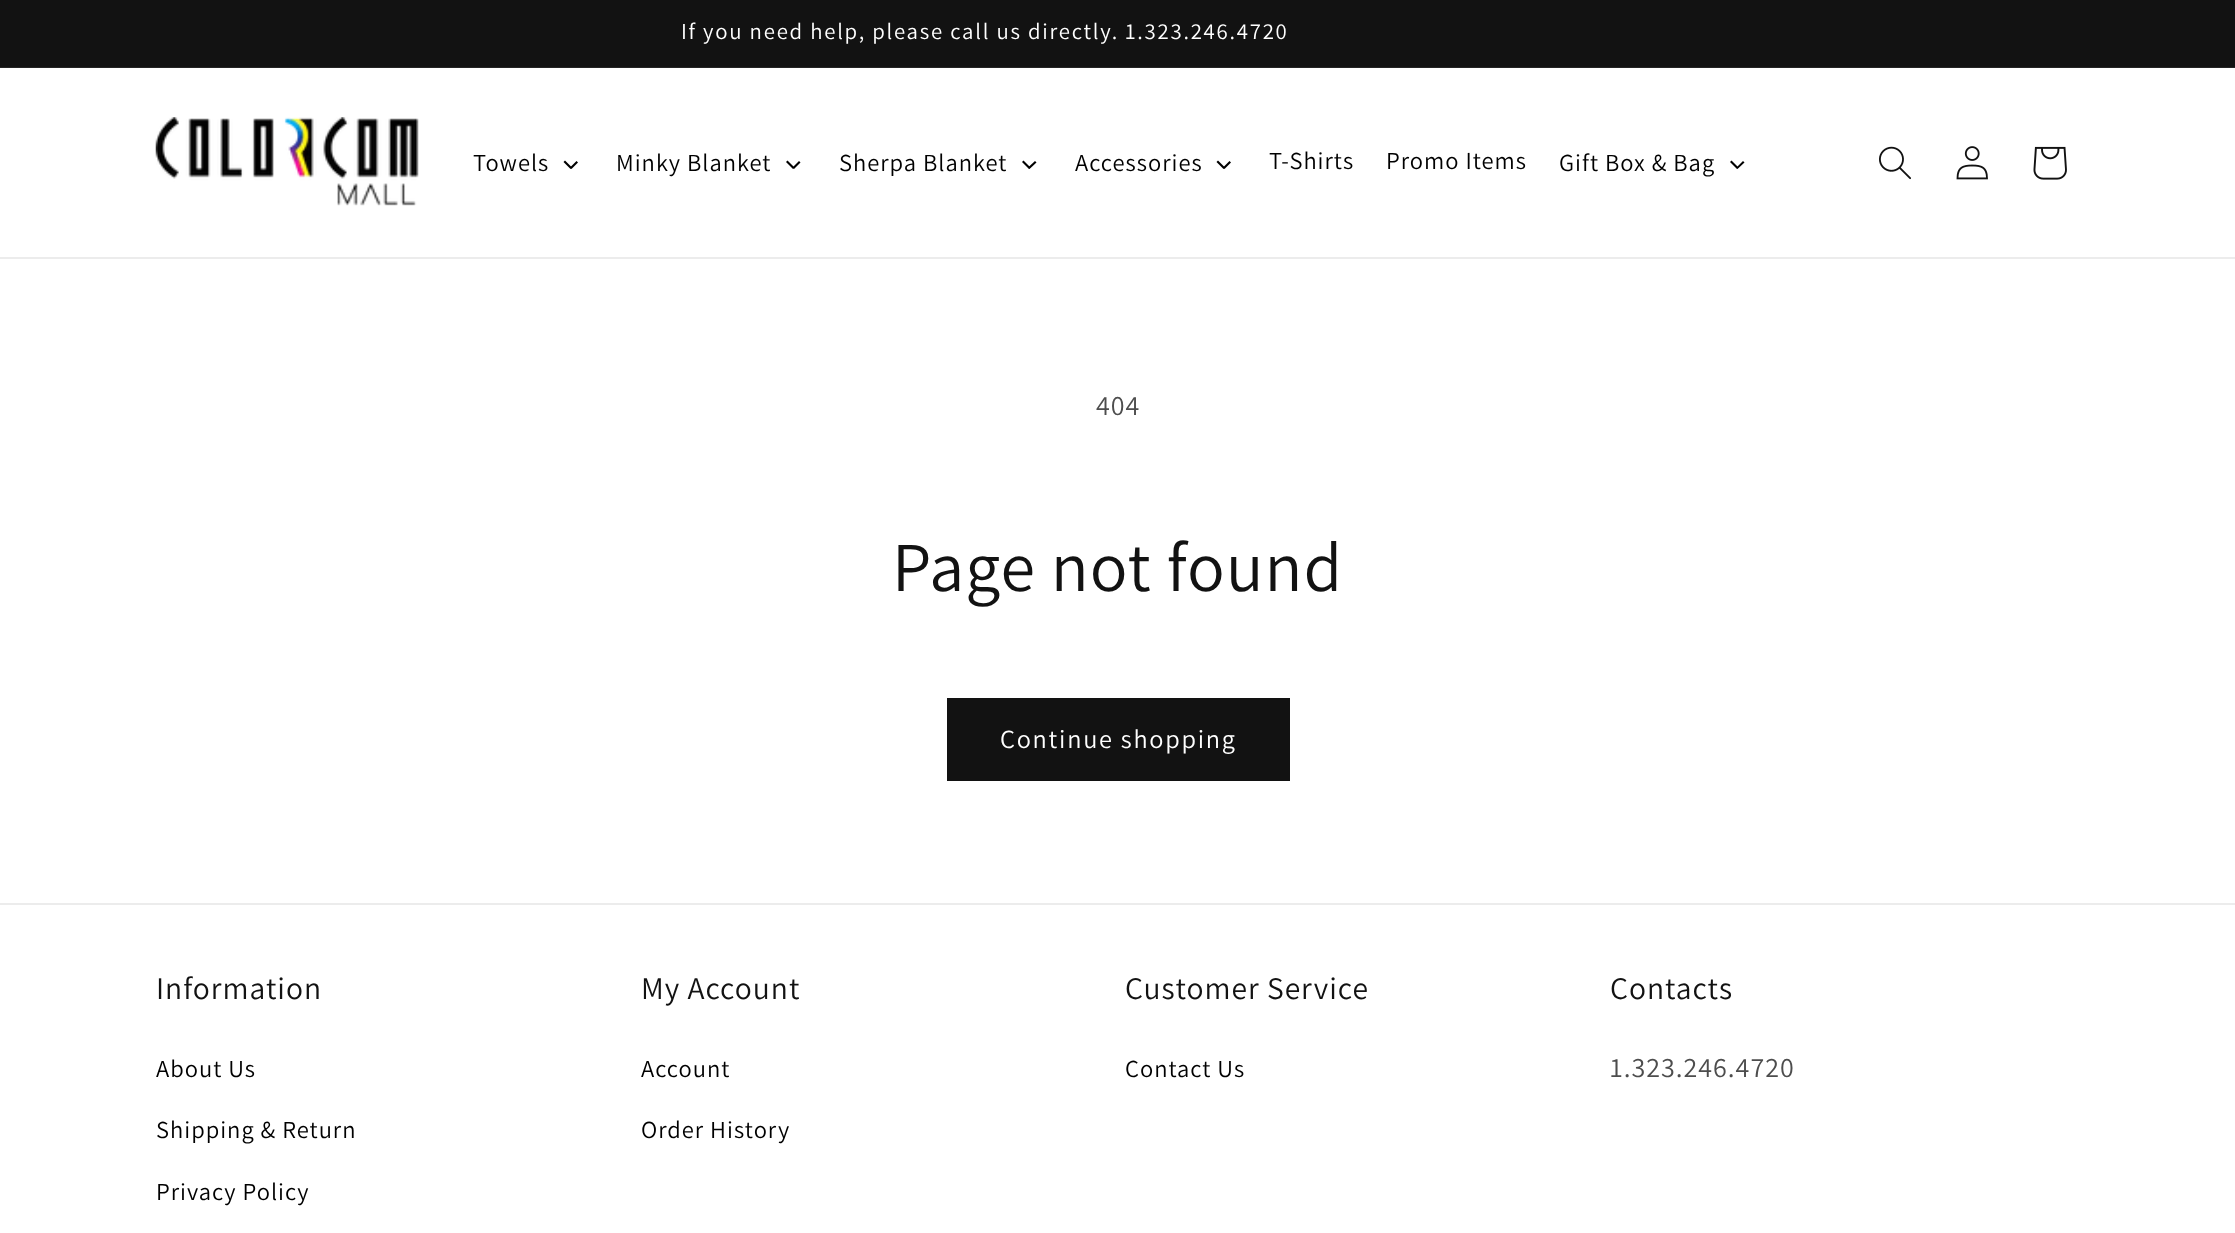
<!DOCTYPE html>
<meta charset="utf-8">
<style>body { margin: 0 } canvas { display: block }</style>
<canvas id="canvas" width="2235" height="1233"></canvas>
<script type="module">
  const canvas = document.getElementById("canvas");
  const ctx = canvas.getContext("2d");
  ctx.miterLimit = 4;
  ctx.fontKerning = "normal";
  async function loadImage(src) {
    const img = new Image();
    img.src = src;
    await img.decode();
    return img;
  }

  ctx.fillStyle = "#ffffff";
  ctx.fillRect(0, 0, 2235, 1233);
  ctx.fillStyle = "#121212";
  ctx.fillRect(0, 0, 2235, 67);
  ctx.fillStyle = "#252525";
  ctx.fillRect(0, 67, 2235, 1);
  ctx.letterSpacing = "1.75px";
  ctx.font = "22.75px Assistant";
  ctx.fillStyle = "#ffffff";
  ctx.fillText("If you need help, please call us directly. 1.323.246.4720", 681, 39);
  ctx.fillStyle = "#ececec";
  ctx.fillRect(0, 257, 2235, 2);
  ctx.drawImage(await loadImage("img1.png"), 155, 117, 264, 89);
  ctx.letterSpacing = "1px";
  ctx.font = "24.5px Assistant";
  ctx.fillStyle = "#000000";
  ctx.fillText("Towels", 473, 171);
  ctx.beginPath();
  ctx.moveTo(576.5, 161);
  ctx.lineTo(578, 162.5);
  ctx.lineTo(571.5, 169);
  ctx.lineTo(570, 167.5);
  ctx.closePath();
  ctx.fill();
  ctx.beginPath();
  ctx.moveTo(565, 160.5);
  ctx.lineTo(572, 167.5);
  ctx.lineTo(570.5, 169);
  ctx.lineTo(563.5, 162);
  ctx.closePath();
  ctx.fill();
  ctx.fillText("Minky Blanket", 616, 171);
  ctx.beginPath();
  ctx.moveTo(799, 161);
  ctx.lineTo(800.5, 162.5);
  ctx.lineTo(794, 169);
  ctx.lineTo(792.5, 167.5);
  ctx.closePath();
  ctx.fill();
  ctx.beginPath();
  ctx.moveTo(787.5, 160.5);
  ctx.lineTo(794.5, 167.5);
  ctx.lineTo(793, 169);
  ctx.lineTo(786, 162);
  ctx.closePath();
  ctx.fill();
  ctx.fillText("Sherpa Blanket", 839, 171);
  ctx.beginPath();
  ctx.moveTo(1035, 161);
  ctx.lineTo(1036.5, 162.5);
  ctx.lineTo(1029.5, 169);
  ctx.lineTo(1028, 167.5);
  ctx.closePath();
  ctx.fill();
  ctx.beginPath();
  ctx.moveTo(1023.5, 160.5);
  ctx.lineTo(1030.5, 167.5);
  ctx.lineTo(1029, 169);
  ctx.lineTo(1022, 162);
  ctx.closePath();
  ctx.fill();
  ctx.fillText("Accessories", 1075, 171);
  ctx.beginPath();
  ctx.moveTo(1229.5, 161);
  ctx.lineTo(1231, 162.5);
  ctx.lineTo(1224.5, 169);
  ctx.lineTo(1223, 167.5);
  ctx.closePath();
  ctx.fill();
  ctx.beginPath();
  ctx.moveTo(1218, 160.5);
  ctx.lineTo(1225, 167.5);
  ctx.lineTo(1223.5, 169);
  ctx.lineTo(1216.5, 162);
  ctx.closePath();
  ctx.fill();
  ctx.fillText("T-Shirts", 1269, 169);
  ctx.fillText("Promo Items", 1386, 169);
  ctx.fillText("Gift Box & Bag", 1559, 171);
  ctx.beginPath();
  ctx.moveTo(1743, 161);
  ctx.lineTo(1744.5, 162.5);
  ctx.lineTo(1737.5, 169);
  ctx.lineTo(1736.5, 167.5);
  ctx.closePath();
  ctx.fill();
  ctx.beginPath();
  ctx.moveTo(1731.5, 160.5);
  ctx.lineTo(1738.5, 167.5);
  ctx.lineTo(1737, 169);
  ctx.lineTo(1730, 162);
  ctx.closePath();
  ctx.fill();
  ctx.drawImage(await loadImage("img2.png"), 1879, 146, 32, 34);
  ctx.drawImage(await loadImage("img3.png"), 1956, 146, 32, 34);
  ctx.drawImage(await loadImage("img4.png"), 2033, 146, 34, 34);
  ctx.font = "28px Assistant";
  ctx.fillStyle = "#4d4d4d";
  ctx.fillText("404", 1096, 415);
  ctx.font = "70px Assistant";
  ctx.fillStyle = "#121212";
  ctx.fillText("Page not found", 892, 591);
  ctx.fillRect(947, 698, 343, 83);
  ctx.letterSpacing = "1.75px";
  ctx.font = "26.25px Assistant";
  ctx.fillStyle = "#ffffff";
  ctx.fillText("Continue shopping", 1000, 748);
  ctx.fillStyle = "#ececec";
  ctx.fillRect(0, 903, 2235, 2);
  ctx.letterSpacing = "1px";
  ctx.font = "31.5px Assistant";
  ctx.fillStyle = "#121212";
  ctx.fillText("Information", 156, 999);
  ctx.font = "24.5px Assistant";
  ctx.fillStyle = "#000000";
  ctx.fillText("About Us", 156, 1077);
  ctx.fillText("Shipping & Return", 156, 1138);
  ctx.fillText("Privacy Policy", 156, 1200);
  ctx.font = "31.5px Assistant";
  ctx.fillStyle = "#121212";
  ctx.fillText("My Account", 641, 999);
  ctx.font = "24.5px Assistant";
  ctx.fillStyle = "#000000";
  ctx.fillText("Account", 641, 1077);
  ctx.fillText("Order History", 641, 1138);
  ctx.font = "31.5px Assistant";
  ctx.fillStyle = "#121212";
  ctx.fillText("Customer Service", 1125, 999);
  ctx.font = "24.5px Assistant";
  ctx.fillStyle = "#000000";
  ctx.fillText("Contact Us", 1125, 1077);
  ctx.font = "31.5px Assistant";
  ctx.fillStyle = "#121212";
  ctx.fillText("Contacts", 1610, 999);
  ctx.font = "28px Assistant";
  ctx.fillStyle = "#4d4d4d";
  ctx.fillText("1.323.246.4720", 1610, 1077);
</script>
